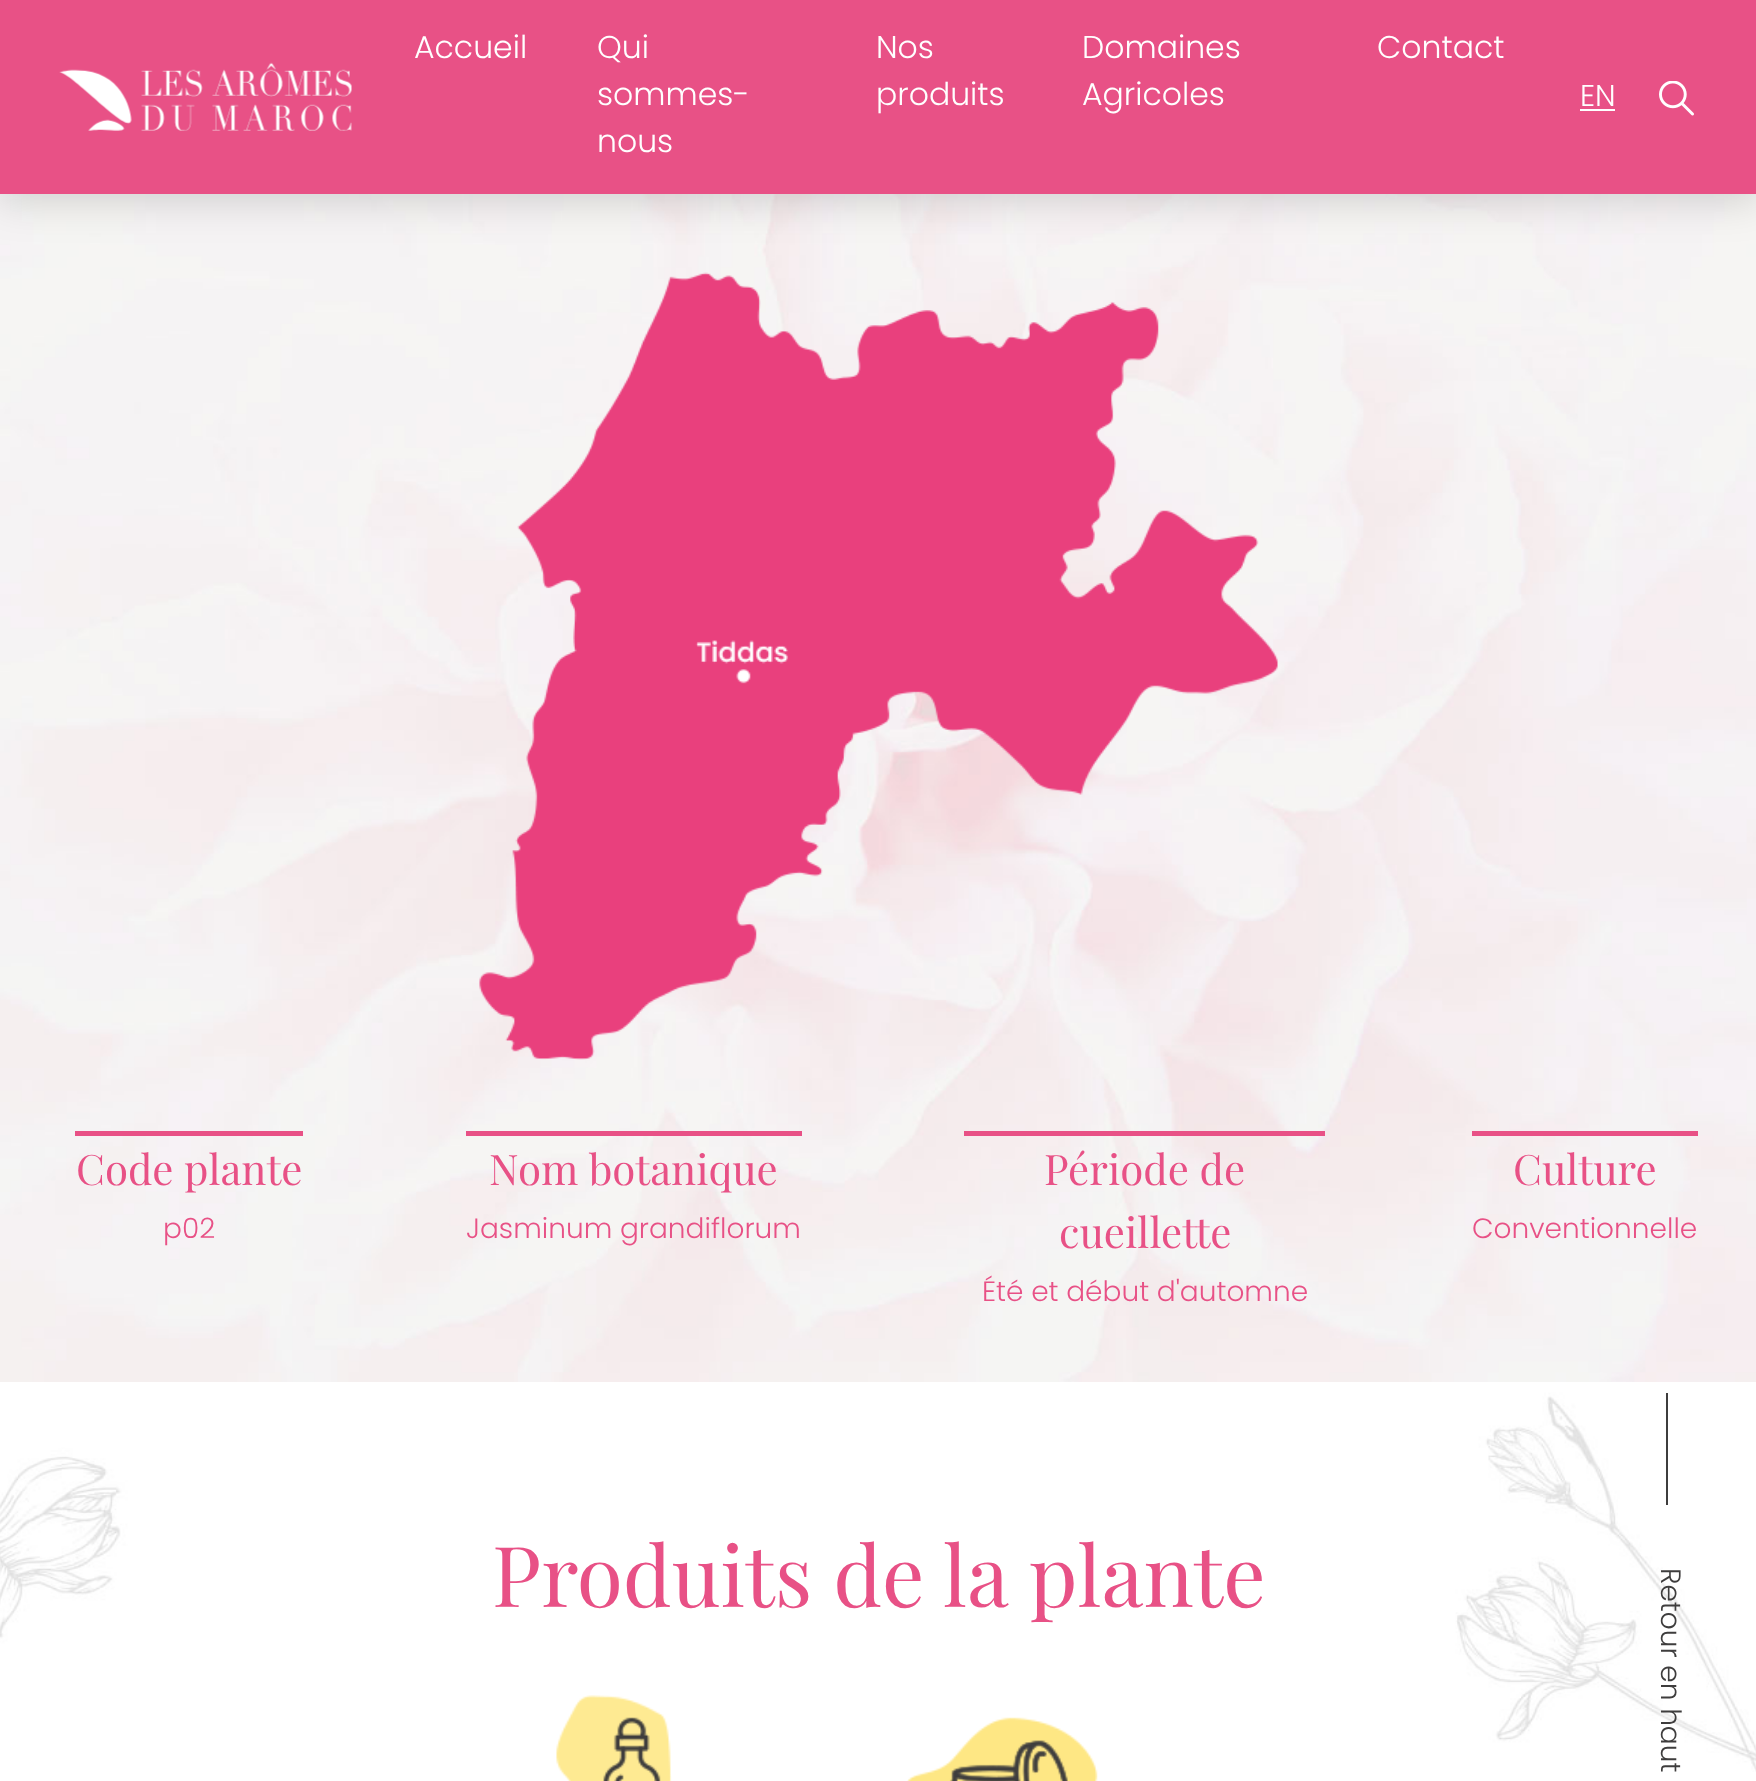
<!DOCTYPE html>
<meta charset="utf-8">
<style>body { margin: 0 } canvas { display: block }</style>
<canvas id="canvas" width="1756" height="1781"></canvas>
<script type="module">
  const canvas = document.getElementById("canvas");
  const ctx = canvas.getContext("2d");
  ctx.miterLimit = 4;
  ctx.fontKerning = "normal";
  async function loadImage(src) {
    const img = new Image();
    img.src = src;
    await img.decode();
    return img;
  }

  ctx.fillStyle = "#ffffff";
  ctx.fillRect(0, 0, 1756, 1781);
  ctx.drawImage(await loadImage("img3.png"), 0, 194, 1756, 1188);
  ctx.fillStyle = "rgba(0, 0, 0, 0.17)";
  ctx.filter = "blur(22px)";
  ctx.beginPath();
  ctx.rect(-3, -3, 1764, 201);
  ctx.fill();
  ctx.filter = "none";
  ctx.fillStyle = "#e85186";
  ctx.fillRect(0, 0, 1756, 194);
  ctx.drawImage(await loadImage("img1.png"), 59, 62, 293, 69);
  ctx.font = "300 31.5px Poppins";
  ctx.fillStyle = "#ffffff";
  ctx.fillText("Accueil", 414, 58);
  ctx.fillText("Qui", 597, 58);
  ctx.fillText("sommes-", 597, 105);
  ctx.fillText("nous", 597, 152);
  ctx.fillText("Nos", 876, 58);
  ctx.fillText("produits", 876, 105);
  ctx.fillText("Domaines", 1082, 58);
  ctx.fillText("Agricoles", 1082, 105);
  ctx.fillText("Contact", 1377, 58);
  ctx.font = "300 30px Poppins";
  ctx.fillText("EN", 1580, 106);
  ctx.fillRect(1580, 109, 35, 2);
  ctx.drawImage(await loadImage("img2.png"), 1659, 81, 35, 35);
  ctx.drawImage(await loadImage("img4.png"), 479, 272, 799, 788);
  ctx.fillStyle = "#e85186";
  ctx.fillRect(75, 1131, 228, 5);
  ctx.font = "42px Playfair Display";
  ctx.fillText("Code plante", 76, 1185);
  ctx.font = "300 28px Poppins";
  ctx.fillText("p02", 163, 1238);
  ctx.fillRect(466, 1131, 336, 5);
  ctx.font = "42px Playfair Display";
  ctx.fillText("Nom botanique", 489, 1185);
  ctx.font = "300 28px Poppins";
  ctx.fillText("Jasminum grandiflorum", 466, 1238);
  ctx.fillRect(964, 1131, 361, 5);
  ctx.font = "42px Playfair Display";
  ctx.fillText("Période de", 1044, 1185);
  ctx.fillText("cueillette", 1059, 1248);
  ctx.font = "300 28px Poppins";
  ctx.fillText("Été et début d'automne", 982, 1301);
  ctx.fillRect(1472, 1131, 226, 5);
  ctx.font = "42px Playfair Display";
  ctx.fillText("Culture", 1513, 1185);
  ctx.font = "300 28px Poppins";
  ctx.fillText("Conventionnelle", 1472, 1238);
  ctx.drawImage(await loadImage("img5.png"), 0, 1382, 1756, 390);
  ctx.font = "84px Playfair Display";
  ctx.fillText("Produits de la plante", 492, 1607);
  ctx.drawImage(await loadImage("img6.png"), 556, 1695, 116, 86);
  ctx.drawImage(await loadImage("img7.png"), 907, 1717, 191, 64);
  ctx.fillStyle = "#3e3d3d";
  ctx.fillRect(1666, 1393, 2, 112);
  ctx.font = "300 28px Poppins";
  ctx.save();
  ctx.translate(1661, 1568);
  ctx.rotate(90 * Math.PI / 180);
  ctx.fillText("Retour en haut", 0, 0);
  ctx.restore();
</script>
